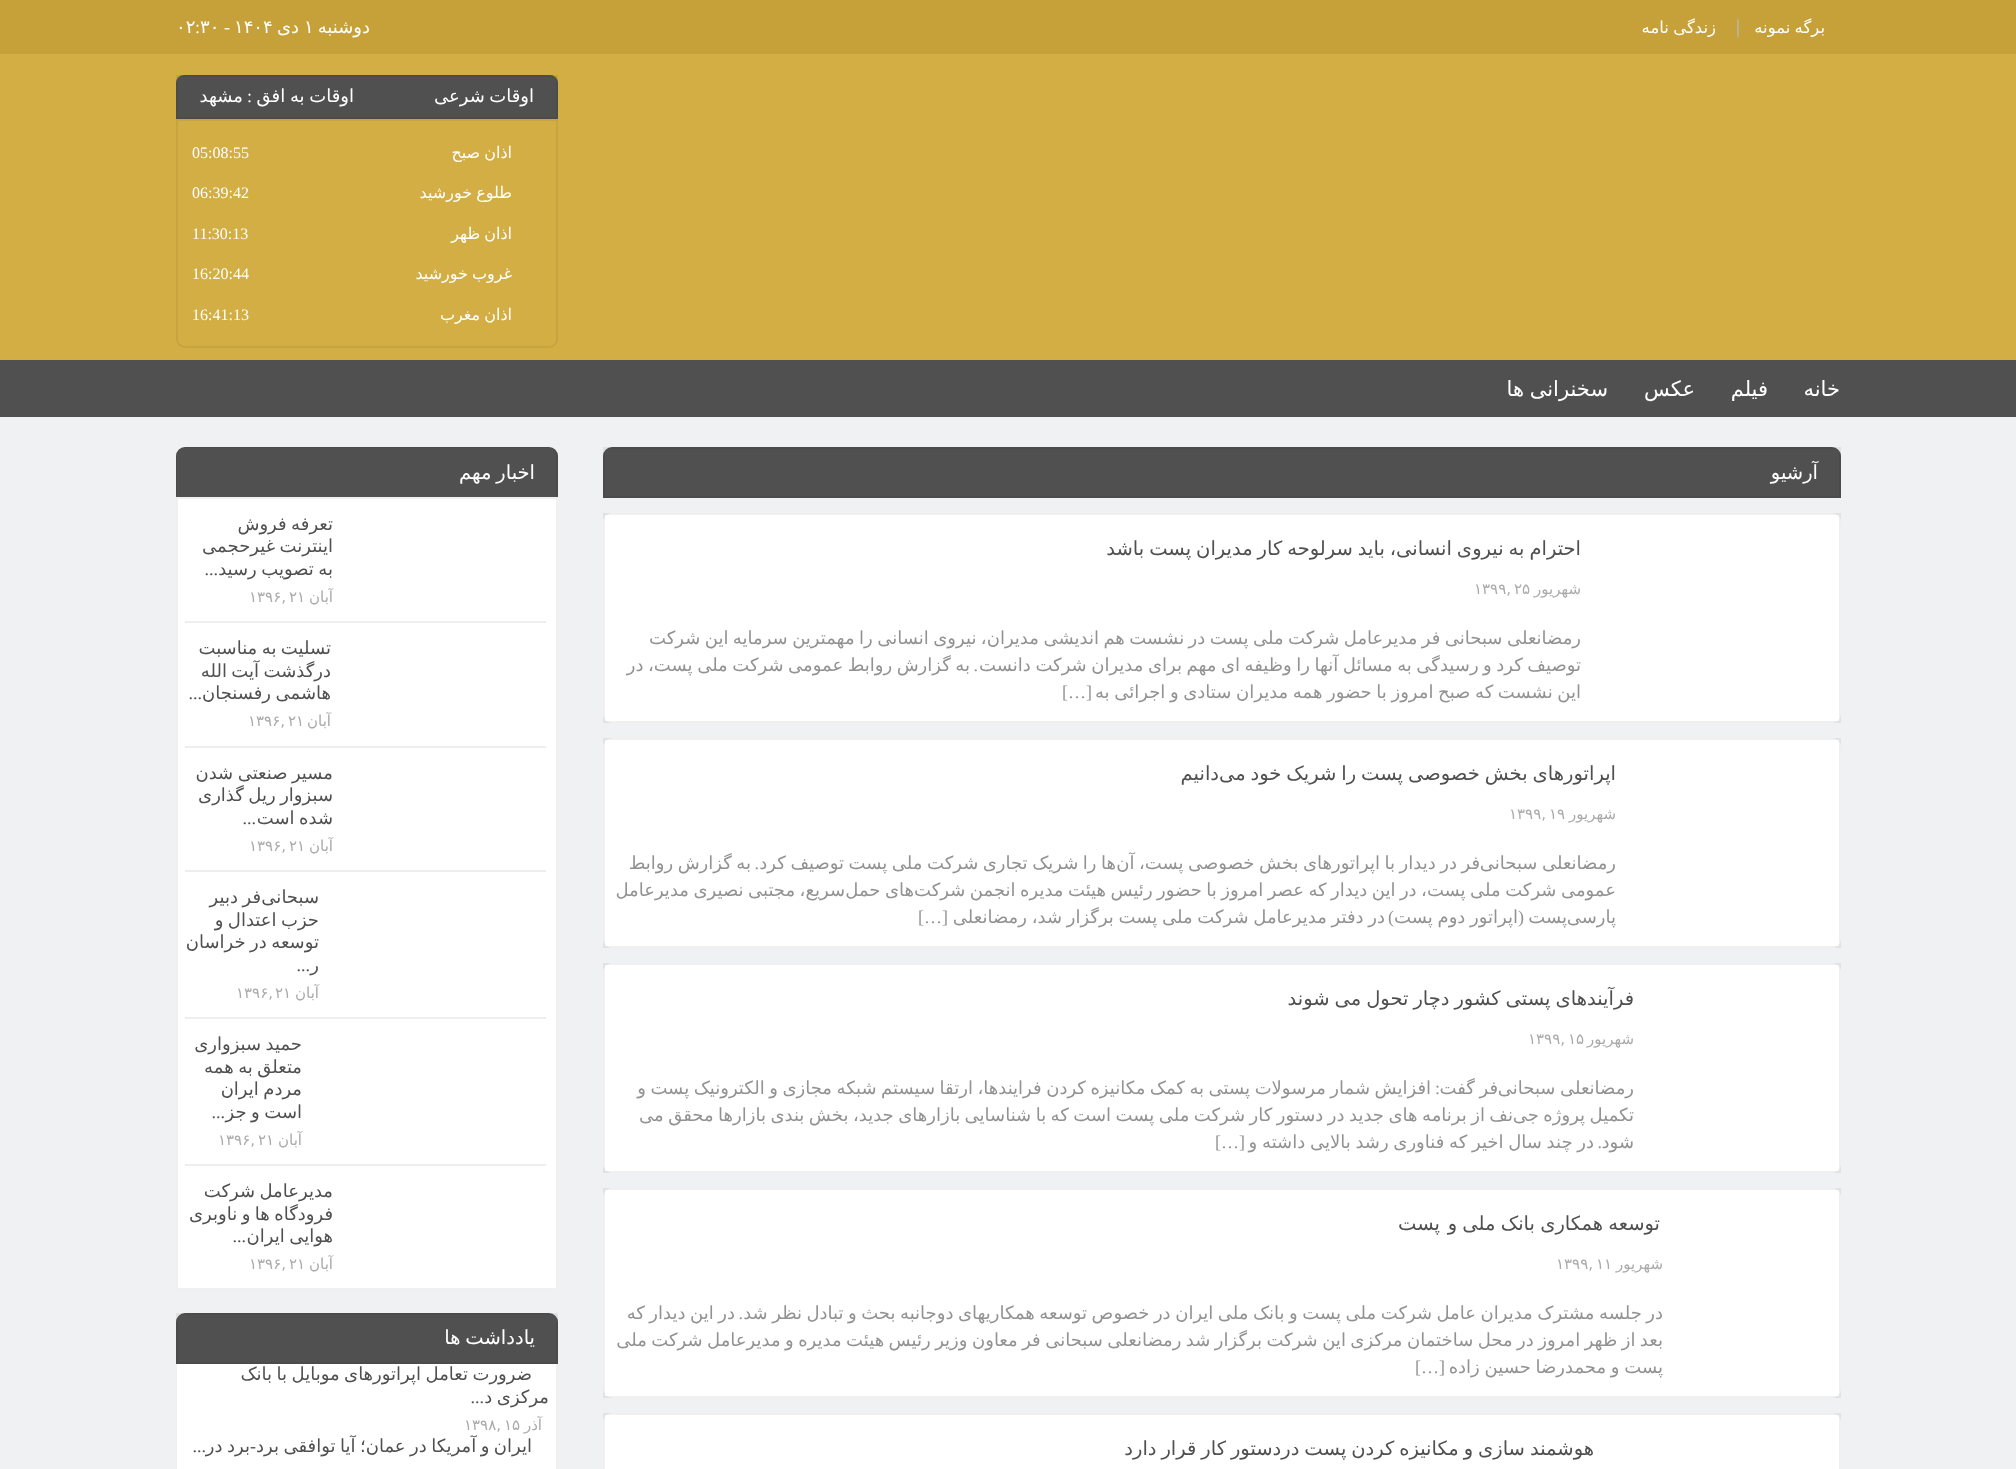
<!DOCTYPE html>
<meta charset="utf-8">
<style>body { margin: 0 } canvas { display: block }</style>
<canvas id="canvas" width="2016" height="1469"></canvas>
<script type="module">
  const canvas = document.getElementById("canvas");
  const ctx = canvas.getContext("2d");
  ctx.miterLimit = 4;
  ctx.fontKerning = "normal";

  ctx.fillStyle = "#eff1f3";
  ctx.fillRect(0, 0, 2016, 1469);
  ctx.fillStyle = "#c6a139";
  ctx.fillRect(0, 0, 2016, 54);
  ctx.wordSpacing = "-1px";
  ctx.direction = "rtl";
  ctx.font = "16.5px DejaVu Sans";
  ctx.fillStyle = "#ffffff";
  ctx.fillText("برگه نمونه", 1825, 33);
  ctx.wordSpacing = "0px";
  ctx.direction = "ltr";
  ctx.font = "19.5px Liberation Serif";
  ctx.fillStyle = "#aec1e0";
  ctx.fillText("|", 1736, 33);
  ctx.wordSpacing = "-1px";
  ctx.direction = "rtl";
  ctx.font = "16.5px DejaVu Sans";
  ctx.fillStyle = "#ffffff";
  ctx.fillText("زندگی نامه", 1716, 33);
  ctx.wordSpacing = "0px";
  ctx.font = "18px DejaVu Sans";
  ctx.fillText("دوشنبه", 370, 33);
  ctx.direction = "ltr";
  ctx.fillText("۱", 304, 33);
  ctx.direction = "rtl";
  ctx.fillText("دی", 299, 33);
  ctx.direction = "ltr";
  ctx.fillText("۱۴۰۴", 234, 33);
  ctx.font = "18px Liberation Serif";
  ctx.fillText("-", 224, 33);
  ctx.font = "18px DejaVu Sans";
  ctx.fillText("۳۰", 200, 33);
  ctx.font = "18px Liberation Serif";
  ctx.fillText(":", 195, 33);
  ctx.font = "18px DejaVu Sans";
  ctx.fillText("۰۲", 176, 33);
  ctx.fillStyle = "#d3ae44";
  ctx.fillRect(0, 54, 2016, 306);
  ctx.fillStyle = "#505050";
  ctx.beginPath();
  ctx.roundRect(176, 75, 382, 44, [8, 8, 0, 0]);
  ctx.fill();
  ctx.strokeStyle = "rgba(0, 0, 0, 0.06)";
  ctx.lineWidth = 2;
  ctx.strokeRect(177, 76, 380, 42);
  ctx.wordSpacing = "-1.25px";
  ctx.direction = "rtl";
  ctx.fillStyle = "#ffffff";
  ctx.fillText("اوقات شرعی", 534, 102);
  ctx.wordSpacing = "-1px";
  ctx.fillText("اوقات به افق", 354, 102);
  ctx.wordSpacing = "0px";
  ctx.font = "18px Liberation Serif";
  ctx.fillText(":", 252, 102);
  ctx.font = "18px DejaVu Sans";
  ctx.fillText("مشهد", 243, 102);
  ctx.beginPath();
  ctx.roundRect(177, 120, 380, 227, [0, 0, 8, 8]);
  ctx.strokeStyle = "#c6a440";
  ctx.stroke();
  ctx.wordSpacing = "-1px";
  ctx.font = "16px DejaVu Sans";
  ctx.fillText("اذان صبح", 512, 158);
  ctx.wordSpacing = "0px";
  ctx.direction = "ltr";
  ctx.font = "16px Liberation Serif";
  ctx.fillText("05:08:55", 192, 158);
  ctx.wordSpacing = "-1px";
  ctx.direction = "rtl";
  ctx.font = "16px DejaVu Sans";
  ctx.fillText("طلوع خورشید", 512, 198);
  ctx.wordSpacing = "0px";
  ctx.direction = "ltr";
  ctx.font = "16px Liberation Serif";
  ctx.fillText("06:39:42", 192, 198);
  ctx.wordSpacing = "-1px";
  ctx.direction = "rtl";
  ctx.font = "16px DejaVu Sans";
  ctx.fillText("اذان ظهر", 512, 239);
  ctx.wordSpacing = "0px";
  ctx.direction = "ltr";
  ctx.font = "16px Liberation Serif";
  ctx.fillText("11:30:13", 192, 239);
  ctx.wordSpacing = "-1px";
  ctx.direction = "rtl";
  ctx.font = "16px DejaVu Sans";
  ctx.fillText("غروب خورشید", 512, 279);
  ctx.wordSpacing = "0px";
  ctx.direction = "ltr";
  ctx.font = "16px Liberation Serif";
  ctx.fillText("16:20:44", 192, 279);
  ctx.wordSpacing = "-1px";
  ctx.direction = "rtl";
  ctx.font = "16px DejaVu Sans";
  ctx.fillText("اذان مغرب", 512, 320);
  ctx.wordSpacing = "0px";
  ctx.direction = "ltr";
  ctx.font = "16px Liberation Serif";
  ctx.fillText("16:41:13", 192, 320);
  ctx.fillStyle = "#505050";
  ctx.fillRect(0, 360, 2016, 57);
  ctx.direction = "rtl";
  ctx.font = "21px DejaVu Sans";
  ctx.fillStyle = "#ffffff";
  ctx.fillText("خانه", 1840, 396);
  ctx.fillText("فیلم", 1768, 396);
  ctx.fillText("عکس", 1695, 396);
  ctx.wordSpacing = "-1px";
  ctx.fillText("سخنرانی ها", 1608, 396);
  ctx.fillStyle = "#505050";
  ctx.beginPath();
  ctx.roundRect(603, 447, 1238, 51, [9, 9, 0, 0]);
  ctx.fill();
  ctx.strokeStyle = "rgba(0, 0, 0, 0.06)";
  ctx.strokeRect(604, 448, 1236, 49);
  ctx.wordSpacing = "0px";
  ctx.font = "19.5px DejaVu Sans";
  ctx.fillStyle = "#ffffff";
  ctx.fillText("آرشیو", 1818, 479);
  ctx.beginPath();
  ctx.roundRect(603, 513, 1238, 210, 9);
  ctx.fill();
  ctx.strokeRect(604, 514, 1236, 208);
  ctx.wordSpacing = "-1.25px";
  ctx.fillStyle = "#505050";
  ctx.fillText("احترام به نیروی انسانی، باید سرلوحه کار مدیران پست باشد", 1581, 555);
  ctx.wordSpacing = "0px";
  ctx.font = "15px DejaVu Sans";
  ctx.fillStyle = "#aaaaaa";
  ctx.fillText("شهریور", 1581, 594);
  ctx.direction = "ltr";
  ctx.fillText("۲۵", 1514, 594);
  ctx.fillText("۱۳۹۹,", 1474, 594);
  ctx.wordSpacing = "-1.25px";
  ctx.direction = "rtl";
  ctx.font = "18px DejaVu Sans";
  ctx.fillStyle = "#929292";
  ctx.fillText("رمضانعلی سبحانی فر مدیرعامل شرکت ملی پست در نشست هم اندیشی مدیران، نیروی انسانی را مهمترین سرمایه این شرکت", 1581, 644);
  ctx.wordSpacing = "-1.2px";
  ctx.fillText("توصیف کرد و رسیدگی به مسائل آنها را وظیفه ای مهم برای مدیران شرکت دانست", 1581, 671);
  ctx.wordSpacing = "0px";
  ctx.font = "18px Liberation Serif";
  ctx.fillText(".", 978, 671);
  ctx.wordSpacing = "-1.2px";
  ctx.font = "18px DejaVu Sans";
  ctx.fillText("به گزارش روابط عمومی شرکت ملی پست، در", 970, 671);
  ctx.wordSpacing = "-1.1px";
  ctx.fillText("این نشست که صبح امروز با حضور همه مدیران ستادی و اجرائی به", 1581, 698);
  ctx.wordSpacing = "0px";
  ctx.font = "18px Liberation Serif";
  ctx.fillText("[…]", 1092, 698);
  ctx.fillStyle = "#ffffff";
  ctx.beginPath();
  ctx.roundRect(603, 738, 1238, 210, 9);
  ctx.fill();
  ctx.strokeRect(604, 739, 1236, 208);
  ctx.wordSpacing = "-1.25px";
  ctx.font = "19.5px DejaVu Sans";
  ctx.fillStyle = "#505050";
  ctx.fillText("اپراتورهای بخش خصوصی پست را شریک خود می", 1616, 780);
  ctx.wordSpacing = "0px";
  ctx.fillText("دانیم", 1219, 780);
  ctx.font = "15px DejaVu Sans";
  ctx.fillStyle = "#aaaaaa";
  ctx.fillText("شهریور", 1616, 819);
  ctx.direction = "ltr";
  ctx.fillText("۱۹", 1549, 819);
  ctx.fillText("۱۳۹۹,", 1509, 819);
  ctx.wordSpacing = "-1.2px";
  ctx.direction = "rtl";
  ctx.font = "18px DejaVu Sans";
  ctx.fillStyle = "#929292";
  ctx.fillText("رمضانعلی سبحانی", 1616, 869);
  ctx.fillText("فر در دیدار با اپراتورهای بخش خصوصی پست، آن", 1480, 869);
  ctx.fillText("ها را شریک تجاری شرکت ملی پست توصیف کرد", 1116, 869);
  ctx.wordSpacing = "0px";
  ctx.font = "18px Liberation Serif";
  ctx.fillText(".", 759, 869);
  ctx.wordSpacing = "-1.2px";
  ctx.font = "18px DejaVu Sans";
  ctx.fillText("به گزارش روابط", 751, 869);
  ctx.wordSpacing = "-1.25px";
  ctx.fillText("عمومی شرکت ملی پست، در این دیدار که عصر امروز با حضور رئیس هیئت مدیره انجمن شرکت", 1616, 896);
  ctx.fillText("های حمل", 914, 896);
  ctx.fillText("سریع، مجتبی نصیری مدیرعامل", 845, 896);
  ctx.wordSpacing = "0px";
  ctx.fillText("پارسی", 1616, 923);
  ctx.fillText("پست", 1567, 923);
  ctx.font = "18px Liberation Serif";
  ctx.fillText("(", 1524, 923);
  ctx.wordSpacing = "-1px";
  ctx.font = "18px DejaVu Sans";
  ctx.fillText("اپراتور دوم پست", 1518, 923);
  ctx.wordSpacing = "0px";
  ctx.font = "18px Liberation Serif";
  ctx.fillText(")", 1394, 923);
  ctx.wordSpacing = "-1px";
  ctx.font = "18px DejaVu Sans";
  ctx.fillText("در دفتر مدیرعامل شرکت ملی پست برگزار شد، رمضانعلی", 1385, 923);
  ctx.wordSpacing = "0px";
  ctx.font = "18px Liberation Serif";
  ctx.fillText("[…]", 948, 923);
  ctx.fillStyle = "#ffffff";
  ctx.beginPath();
  ctx.roundRect(603, 963, 1238, 210, 9);
  ctx.fill();
  ctx.strokeRect(604, 964, 1236, 208);
  ctx.wordSpacing = "-1.25px";
  ctx.font = "19.5px DejaVu Sans";
  ctx.fillStyle = "#505050";
  ctx.fillText("فرآیندهای پستی کشور دچار تحول می شوند", 1634, 1005);
  ctx.wordSpacing = "0px";
  ctx.font = "15px DejaVu Sans";
  ctx.fillStyle = "#aaaaaa";
  ctx.fillText("شهریور", 1634, 1044);
  ctx.direction = "ltr";
  ctx.fillText("۱۵", 1568, 1044);
  ctx.fillText("۱۳۹۹,", 1528, 1044);
  ctx.wordSpacing = "-1.2px";
  ctx.direction = "rtl";
  ctx.font = "18px DejaVu Sans";
  ctx.fillStyle = "#929292";
  ctx.fillText("رمضانعلی سبحانی", 1634, 1094);
  ctx.fillText("فر گفت", 1498, 1094);
  ctx.wordSpacing = "0px";
  ctx.font = "18px Liberation Serif";
  ctx.fillText(":", 1440, 1094);
  ctx.wordSpacing = "-1.2px";
  ctx.font = "18px DejaVu Sans";
  ctx.fillText("افزایش شمار مرسولات پستی به کمک مکانیزه کردن فرایندها، ارتقا سیستم شبکه مجازی و الکترونیک پست و", 1431, 1094);
  ctx.wordSpacing = "-1.25px";
  ctx.fillText("تکمیل پروژه جی", 1634, 1121);
  ctx.fillText("نف از برنامه های جدید در دستور کار شرکت ملی پست است که با شناسایی بازارهای جدید، بخش بندی بازارها محقق می", 1513, 1121);
  ctx.wordSpacing = "0px";
  ctx.fillText("شود", 1634, 1148);
  ctx.font = "18px Liberation Serif";
  ctx.fillText(".", 1602, 1148);
  ctx.wordSpacing = "-1px";
  ctx.font = "18px DejaVu Sans";
  ctx.fillText("در چند سال اخیر که فناوری رشد بالایی داشته و", 1594, 1148);
  ctx.wordSpacing = "0px";
  ctx.font = "18px Liberation Serif";
  ctx.fillText("[…]", 1245, 1148);
  ctx.fillStyle = "#ffffff";
  ctx.beginPath();
  ctx.roundRect(603, 1188, 1238, 210, 9);
  ctx.fill();
  ctx.strokeRect(604, 1189, 1236, 208);
  ctx.wordSpacing = "-1px";
  ctx.font = "19.5px DejaVu Sans";
  ctx.fillStyle = "#505050";
  ctx.fillText("توسعه همکاری بانک ملی و", 1660, 1230);
  ctx.wordSpacing = "0px";
  ctx.fillText("پست", 1440, 1230);
  ctx.font = "15px DejaVu Sans";
  ctx.fillStyle = "#aaaaaa";
  ctx.fillText("شهریور", 1663, 1269);
  ctx.direction = "ltr";
  ctx.fillText("۱۱", 1596, 1269);
  ctx.fillText("۱۳۹۹,", 1556, 1269);
  ctx.wordSpacing = "-1.2px";
  ctx.direction = "rtl";
  ctx.font = "18px DejaVu Sans";
  ctx.fillStyle = "#929292";
  ctx.fillText("در جلسه مشترک مدیران عامل شرکت ملی پست و بانک ملی ایران در خصوص توسعه همکاریهای دوجانبه بحث و تبادل نظر شد", 1663, 1319);
  ctx.wordSpacing = "0px";
  ctx.font = "18px Liberation Serif";
  ctx.fillText(".", 743, 1319);
  ctx.wordSpacing = "-1.2px";
  ctx.font = "18px DejaVu Sans";
  ctx.fillText("در این دیدار که", 735, 1319);
  ctx.wordSpacing = "-1.25px";
  ctx.fillText("بعد از ظهر امروز در محل ساختمان مرکزی این شرکت برگزار شد رمضانعلی سبحانی فر معاون وزیر رئیس هیئت مدیره و مدیرعامل شرکت ملی", 1663, 1346);
  ctx.wordSpacing = "-1px";
  ctx.fillText("پست و محمدرضا حسین زاده", 1663, 1373);
  ctx.wordSpacing = "0px";
  ctx.font = "18px Liberation Serif";
  ctx.fillText("[…]", 1445, 1373);
  ctx.fillStyle = "#ffffff";
  ctx.beginPath();
  ctx.roundRect(603, 1413, 1238, 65, 9);
  ctx.fill();
  ctx.strokeRect(604, 1414, 1236, 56);
  ctx.wordSpacing = "-1.25px";
  ctx.font = "19.5px DejaVu Sans";
  ctx.fillStyle = "#505050";
  ctx.fillText("هوشمند سازی و مکانیزه کردن پست دردستور کار قرار دارد", 1594, 1455);
  ctx.beginPath();
  ctx.roundRect(176, 447, 382, 50, [9, 9, 0, 0]);
  ctx.fill();
  ctx.fillStyle = "rgba(0, 0, 0, 0.06)";
  ctx.beginPath();
  ctx.moveTo(184, 447);
  ctx.lineTo(549, 447);
  ctx.bezierCurveTo(554, 447, 558, 451, 558, 456);
  ctx.lineTo(558, 496);
  ctx.lineTo(176, 496);
  ctx.lineTo(176, 456);
  ctx.bezierCurveTo(176, 451, 180, 447, 184, 447);
  ctx.closePath();
  ctx.moveTo(184, 448);
  ctx.lineTo(549, 448);
  ctx.bezierCurveTo(553, 448, 556, 452, 556, 456);
  ctx.lineTo(556, 496);
  ctx.lineTo(177, 496);
  ctx.lineTo(177, 456);
  ctx.bezierCurveTo(177, 452, 180, 448, 184, 448);
  ctx.closePath();
  ctx.fill("evenodd");
  ctx.fillStyle = "#ffffff";
  ctx.fillText("اخبار مهم", 535, 479);
  ctx.beginPath();
  ctx.rect(177, 498, 380, 791);
  ctx.fill();
  ctx.strokeStyle = "#f0f0f0";
  ctx.stroke();
  ctx.fillStyle = "#eeeeee";
  ctx.fillRect(185, 621, 361, 2);
  ctx.font = "18px DejaVu Sans";
  ctx.fillStyle = "#505050";
  ctx.fillText("تعرفه فروش", 333, 530);
  ctx.fillText("اینترنت غیرحجمی", 333, 552);
  ctx.fillText("به تصویب رسید", 333, 575);
  ctx.wordSpacing = "0px";
  ctx.font = "18px Liberation Serif";
  ctx.fillText("...", 218, 575);
  ctx.font = "15px DejaVu Sans";
  ctx.fillStyle = "#aaaaaa";
  ctx.fillText("آبان", 333, 602);
  ctx.direction = "ltr";
  ctx.fillText("۲۱", 289, 602);
  ctx.fillText("۱۳۹۶,", 249, 602);
  ctx.fillStyle = "#eeeeee";
  ctx.fillRect(185, 746, 361, 2);
  ctx.wordSpacing = "-1.25px";
  ctx.direction = "rtl";
  ctx.font = "18px DejaVu Sans";
  ctx.fillStyle = "#505050";
  ctx.fillText("تسلیت به مناسبت", 331, 654);
  ctx.fillText("درگذشت آیت الله", 331, 677);
  ctx.fillText("هاشمی رفسنجان", 331, 699);
  ctx.wordSpacing = "0px";
  ctx.font = "18px Liberation Serif";
  ctx.fillText("...", 202, 699);
  ctx.font = "15px DejaVu Sans";
  ctx.fillStyle = "#aaaaaa";
  ctx.fillText("آبان", 331, 726);
  ctx.direction = "ltr";
  ctx.fillText("۲۱", 288, 726);
  ctx.fillText("۱۳۹۶,", 248, 726);
  ctx.fillStyle = "#eeeeee";
  ctx.fillRect(185, 870, 361, 2);
  ctx.wordSpacing = "-1.25px";
  ctx.direction = "rtl";
  ctx.font = "18px DejaVu Sans";
  ctx.fillStyle = "#505050";
  ctx.fillText("مسیر صنعتی شدن", 333, 779);
  ctx.fillText("سبزوار ریل گذاری", 333, 801);
  ctx.fillText("شده است", 333, 824);
  ctx.wordSpacing = "0px";
  ctx.font = "18px Liberation Serif";
  ctx.fillText("...", 256, 824);
  ctx.font = "15px DejaVu Sans";
  ctx.fillStyle = "#aaaaaa";
  ctx.fillText("آبان", 333, 851);
  ctx.direction = "ltr";
  ctx.fillText("۲۱", 289, 851);
  ctx.fillText("۱۳۹۶,", 249, 851);
  ctx.fillStyle = "#eeeeee";
  ctx.fillRect(185, 1017, 361, 2);
  ctx.direction = "rtl";
  ctx.font = "18px DejaVu Sans";
  ctx.fillStyle = "#505050";
  ctx.fillText("سبحانی", 319, 903);
  ctx.wordSpacing = "-1.25px";
  ctx.fillText("فر دبیر", 261, 903);
  ctx.fillText("حزب اعتدال و", 319, 926);
  ctx.fillText("توسعه در خراسان", 319, 948);
  ctx.wordSpacing = "0px";
  ctx.font = "18px Liberation Serif";
  ctx.fillText("...", 310, 971);
  ctx.font = "18px DejaVu Sans";
  ctx.fillText("ر", 319, 971);
  ctx.font = "15px DejaVu Sans";
  ctx.fillStyle = "#aaaaaa";
  ctx.fillText("آبان", 319, 998);
  ctx.direction = "ltr";
  ctx.fillText("۲۱", 275, 998);
  ctx.fillText("۱۳۹۶,", 236, 998);
  ctx.fillStyle = "#eeeeee";
  ctx.fillRect(185, 1164, 361, 2);
  ctx.wordSpacing = "-1.25px";
  ctx.direction = "rtl";
  ctx.font = "18px DejaVu Sans";
  ctx.fillStyle = "#505050";
  ctx.fillText("حمید سبزواری", 302, 1050);
  ctx.fillText("متعلق به همه", 302, 1073);
  ctx.fillText("مردم ایران", 302, 1095);
  ctx.wordSpacing = "0px";
  ctx.font = "18px Liberation Serif";
  ctx.fillText("...", 225, 1118);
  ctx.wordSpacing = "-1.25px";
  ctx.font = "18px DejaVu Sans";
  ctx.fillText("است و جز", 302, 1118);
  ctx.wordSpacing = "0px";
  ctx.font = "15px DejaVu Sans";
  ctx.fillStyle = "#aaaaaa";
  ctx.fillText("آبان", 302, 1145);
  ctx.direction = "ltr";
  ctx.fillText("۲۱", 258, 1145);
  ctx.fillText("۱۳۹۶,", 218, 1145);
  ctx.wordSpacing = "-1.25px";
  ctx.direction = "rtl";
  ctx.font = "18px DejaVu Sans";
  ctx.fillStyle = "#505050";
  ctx.fillText("مدیرعامل شرکت", 333, 1197);
  ctx.fillText("فرودگاه ها و ناوبری", 333, 1220);
  ctx.fillText("هوایی ایران", 333, 1242);
  ctx.wordSpacing = "0px";
  ctx.font = "18px Liberation Serif";
  ctx.fillText("...", 246, 1242);
  ctx.font = "15px DejaVu Sans";
  ctx.fillStyle = "#aaaaaa";
  ctx.fillText("آبان", 333, 1269);
  ctx.direction = "ltr";
  ctx.fillText("۲۱", 289, 1269);
  ctx.fillText("۱۳۹۶,", 249, 1269);
  ctx.fillStyle = "#505050";
  ctx.beginPath();
  ctx.roundRect(176, 1313, 382, 51, [9, 9, 0, 0]);
  ctx.fill();
  ctx.strokeStyle = "rgba(0, 0, 0, 0.06)";
  ctx.strokeRect(177, 1314, 380, 49);
  ctx.wordSpacing = "-1.25px";
  ctx.direction = "rtl";
  ctx.font = "19.5px DejaVu Sans";
  ctx.fillStyle = "#ffffff";
  ctx.fillText("یادداشت ها", 535, 1344);
  ctx.fillRect(177, 1364, 379, 105);
  ctx.fillStyle = "#f0f0f0";
  ctx.beginPath();
  ctx.moveTo(558, 1364);
  ctx.lineTo(558, 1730);
  ctx.lineTo(556, 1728);
  ctx.lineTo(556, 1364);
  ctx.closePath();
  ctx.fill();
  ctx.beginPath();
  ctx.moveTo(176, 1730);
  ctx.lineTo(176, 1364);
  ctx.lineTo(177, 1364);
  ctx.lineTo(177, 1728);
  ctx.closePath();
  ctx.fill();
  ctx.font = "18px DejaVu Sans";
  ctx.fillStyle = "#505050";
  ctx.fillText("ضرورت تعامل اپراتورهای موبایل با بانک", 532, 1380);
  ctx.fillText("مرکزی د", 549, 1403);
  ctx.wordSpacing = "0px";
  ctx.font = "18px Liberation Serif";
  ctx.fillText("...", 484, 1403);
  ctx.font = "15px DejaVu Sans";
  ctx.fillStyle = "#aaaaaa";
  ctx.fillText("آذر", 542, 1430);
  ctx.direction = "ltr";
  ctx.fillText("۱۵", 504, 1430);
  ctx.fillText("۱۳۹۸,", 464, 1430);
  ctx.wordSpacing = "-1.25px";
  ctx.direction = "rtl";
  ctx.font = "18px DejaVu Sans";
  ctx.fillStyle = "#505050";
  ctx.fillText("ایران و آمریکا در عمان؛ آیا توافقی برد", 532, 1452);
  ctx.wordSpacing = "0px";
  ctx.font = "18px Liberation Serif";
  ctx.fillText("-", 256, 1452);
  ctx.fillText("...", 206, 1452);
  ctx.wordSpacing = "-1.25px";
  ctx.font = "18px DejaVu Sans";
  ctx.fillText("برد در", 250, 1452);
</script>
